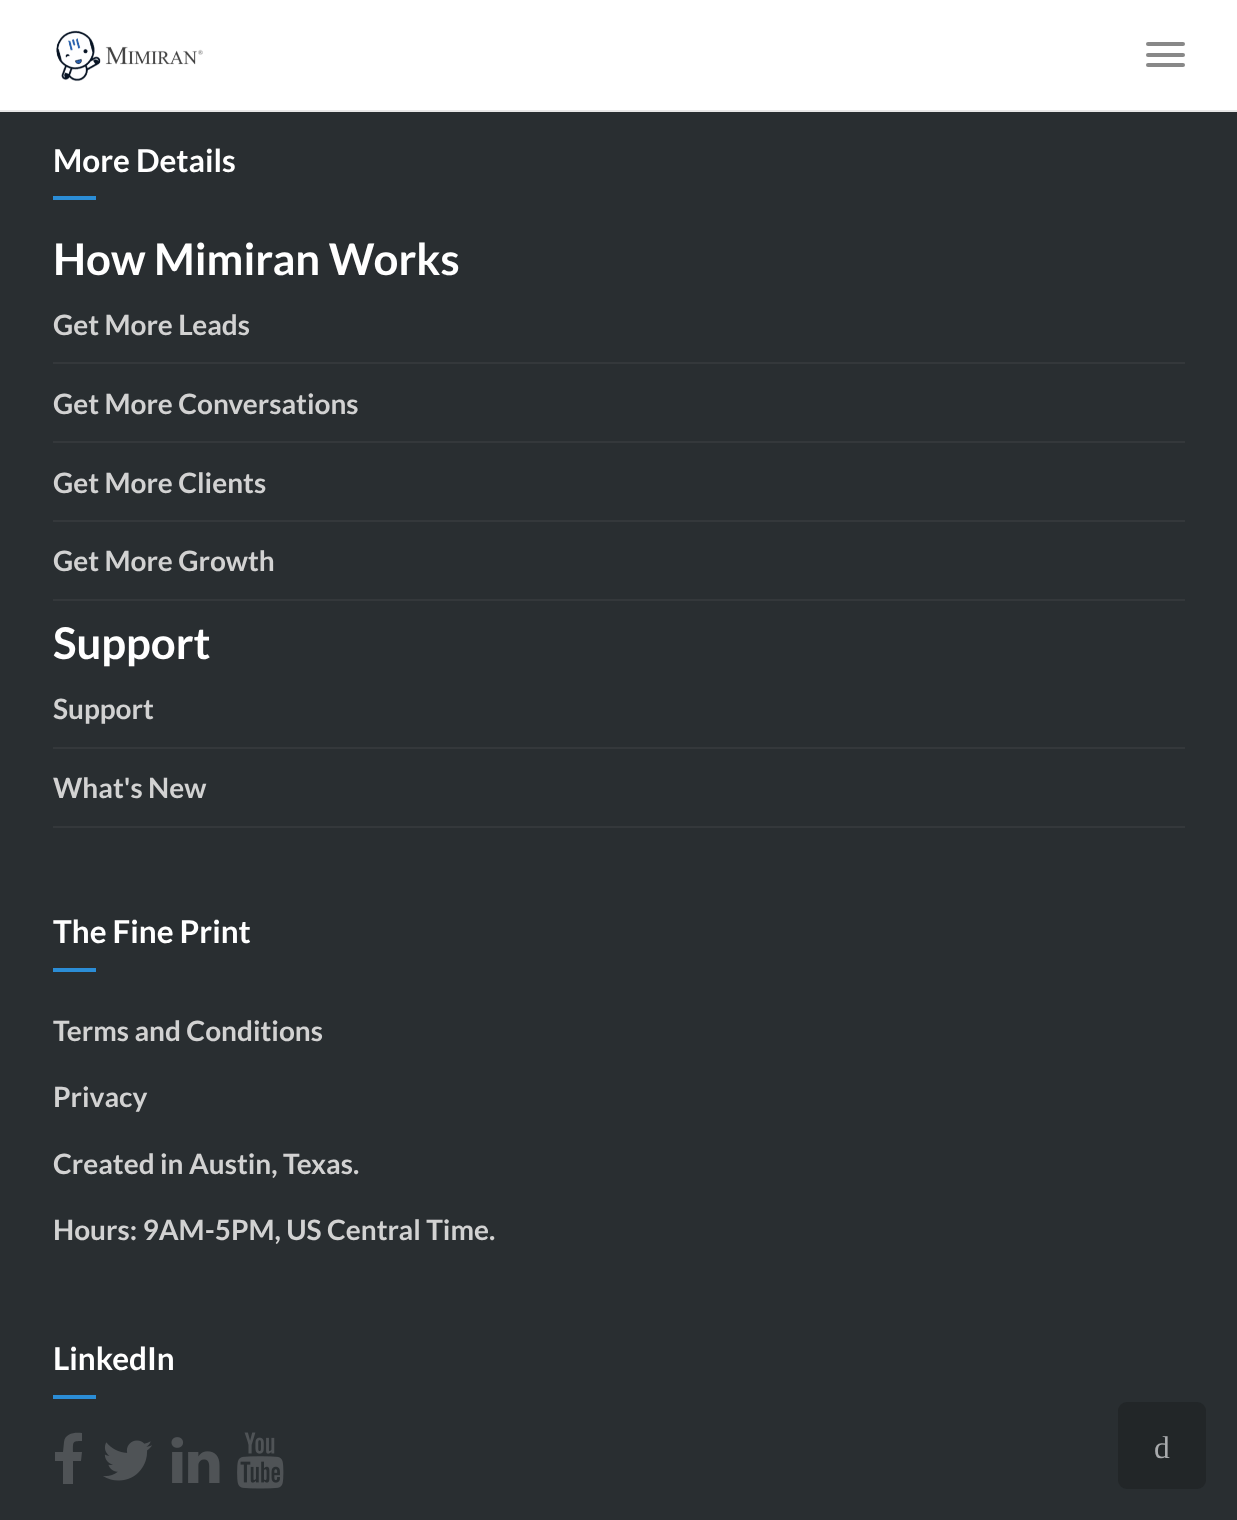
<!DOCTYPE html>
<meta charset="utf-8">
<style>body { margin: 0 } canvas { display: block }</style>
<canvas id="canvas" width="1237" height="1520"></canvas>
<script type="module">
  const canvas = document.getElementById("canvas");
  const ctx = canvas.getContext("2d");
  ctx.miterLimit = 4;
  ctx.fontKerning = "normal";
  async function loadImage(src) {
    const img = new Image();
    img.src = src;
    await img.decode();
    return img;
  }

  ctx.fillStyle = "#292e31";
  ctx.fillRect(0, 0, 1237, 1520);
  ctx.fillStyle = "#ffffff";
  ctx.fillRect(0, 0, 1237, 110);
  ctx.fillStyle = "#e7e7e7";
  ctx.fillRect(0, 110, 1237, 2);
  ctx.drawImage(await loadImage("img1.png"), 56, 30, 147, 52);
  ctx.fillStyle = "#888888";
  ctx.beginPath();
  ctx.roundRect(1146, 42, 39, 4, 2);
  ctx.fill();
  ctx.beginPath();
  ctx.roundRect(1146, 53, 39, 4, 2);
  ctx.fill();
  ctx.beginPath();
  ctx.roundRect(1146, 63, 39, 4, 2);
  ctx.fill();
  ctx.font = "bold 31.5px Lato";
  ctx.fillStyle = "#ffffff";
  ctx.fillText("More Details", 53, 172);
  ctx.fillStyle = "#2b8dd6";
  ctx.fillRect(53, 196, 43, 4);
  ctx.font = "bold 43.75px Lato";
  ctx.fillStyle = "#ffffff";
  ctx.fillText("How Mimiran Works", 53, 275);
  ctx.fillStyle = "#34383b";
  ctx.fillRect(53, 362, 1132, 2);
  ctx.font = "bold 28px Lato";
  ctx.fillStyle = "#d2d2d2";
  ctx.fillText("Get More Leads", 53, 335);
  ctx.fillStyle = "#34383b";
  ctx.fillRect(53, 441, 1132, 2);
  ctx.fillStyle = "#d2d2d2";
  ctx.fillText("Get More Conversations", 53, 414);
  ctx.fillStyle = "#34383b";
  ctx.fillRect(53, 520, 1132, 2);
  ctx.fillStyle = "#d2d2d2";
  ctx.fillText("Get More Clients", 53, 493);
  ctx.fillStyle = "#34383b";
  ctx.fillRect(53, 599, 1132, 2);
  ctx.fillStyle = "#d2d2d2";
  ctx.fillText("Get More Growth", 53, 571);
  ctx.font = "bold 43.75px Lato";
  ctx.fillStyle = "#ffffff";
  ctx.fillText("Support", 53, 659);
  ctx.fillStyle = "#34383b";
  ctx.fillRect(53, 747, 1132, 2);
  ctx.font = "bold 28px Lato";
  ctx.fillStyle = "#d2d2d2";
  ctx.fillText("Support", 53, 719);
  ctx.fillStyle = "#34383b";
  ctx.fillRect(53, 826, 1132, 2);
  ctx.fillStyle = "#d2d2d2";
  ctx.fillText("What's New", 53, 798);
  ctx.font = "bold 31.5px Lato";
  ctx.fillStyle = "#ffffff";
  ctx.fillText("The Fine Print", 53, 943);
  ctx.fillStyle = "#2b8dd6";
  ctx.fillRect(53, 968, 43, 4);
  ctx.font = "bold 28px Lato";
  ctx.fillStyle = "#d2d2d2";
  ctx.fillText("Terms and Conditions", 53, 1041);
  ctx.fillText("Privacy", 53, 1107);
  ctx.fillText("Created in Austin, Texas.", 53, 1174);
  ctx.fillText("Hours: 9AM-5PM, US Central Time.", 53, 1240);
  ctx.font = "bold 31.5px Lato";
  ctx.fillStyle = "#ffffff";
  ctx.fillText("LinkedIn", 53, 1370);
  ctx.fillStyle = "#2b8dd6";
  ctx.fillRect(53, 1395, 43, 4);
  ctx.fillStyle = "#4f5356";
  ctx.beginPath();
  ctx.moveTo(82, 1433);
  ctx.lineTo(82, 1441);
  ctx.bezierCurveTo(72, 1441, 73, 1442, 73, 1452);
  ctx.lineTo(82, 1452);
  ctx.lineTo(81, 1461);
  ctx.lineTo(73, 1461);
  ctx.lineTo(73, 1484);
  ctx.lineTo(63, 1484);
  ctx.lineTo(63, 1461);
  ctx.lineTo(55, 1461);
  ctx.lineTo(55, 1452);
  ctx.lineTo(63, 1452);
  ctx.lineTo(64, 1442);
  ctx.bezierCurveTo(65, 1433, 75, 1432, 82, 1433);
  ctx.closePath();
  ctx.fill();
  ctx.drawImage(await loadImage("img2.png"), 103, 1440, 49, 41);
  ctx.drawImage(await loadImage("img3.png"), 171, 1437, 49, 46);
  ctx.drawImage(await loadImage("img4.png"), 237, 1432, 47, 57);
  ctx.fillStyle = "#222628";
  ctx.beginPath();
  ctx.roundRect(1118, 1402, 88, 87, 9);
  ctx.fill();
  ctx.font = "31.5px Liberation Serif";
  ctx.fillStyle = "#a9abad";
  ctx.fillText("d", 1154, 1458);
</script>
